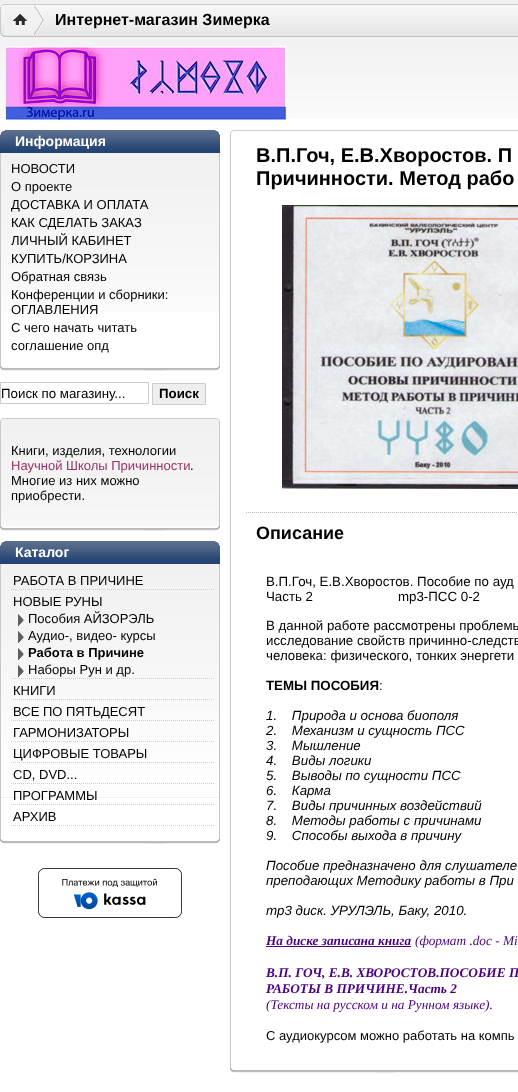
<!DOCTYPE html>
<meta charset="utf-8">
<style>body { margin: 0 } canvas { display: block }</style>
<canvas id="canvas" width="518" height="1092"></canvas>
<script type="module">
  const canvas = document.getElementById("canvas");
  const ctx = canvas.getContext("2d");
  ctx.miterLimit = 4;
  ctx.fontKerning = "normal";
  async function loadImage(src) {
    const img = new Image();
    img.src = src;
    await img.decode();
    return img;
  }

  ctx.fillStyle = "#ffffff";
  ctx.fillRect(0, 0, 518, 1092);
  ctx.drawImage(await loadImage("img1.png"), 0, 0, 518, 118);
  ctx.drawImage(await loadImage("img2.png"), 0, 4, 518, 33);
  ctx.font = "bold 16px Liberation Sans";
  ctx.fillStyle = "#000000";
  ctx.fillText("Интернет-магазин Зимерка", 55, 25);
  ctx.drawImage(await loadImage("img3.png"), 5, 46, 282, 75);
  ctx.drawImage(await loadImage("img4.png"), 0, 130, 220, 23);
  ctx.font = "bold 14px Liberation Sans";
  ctx.fillStyle = "#ffffff";
  ctx.fillText("Информация", 15, 146);
  ctx.drawImage(await loadImage("img5.png"), 1, 153, 218, 159);
  ctx.fillStyle = "#c7c7c7";
  ctx.fillRect(219, 153, 1, 213);
  ctx.fillRect(0, 153, 1, 213);
  ctx.font = "13px Liberation Sans";
  ctx.fillStyle = "#000000";
  ctx.fillText("НОВОСТИ", 11, 173);
  ctx.fillText("О проекте", 11, 191);
  ctx.fillText("ДОСТАВКА И ОПЛАТА", 11, 209);
  ctx.fillText("КАК СДЕЛАТЬ ЗАКАЗ", 11, 227);
  ctx.fillText("ЛИЧНЫЙ КАБИНЕТ", 11, 245);
  ctx.fillText("КУПИТЬ/КОРЗИНА", 11, 263);
  ctx.fillText("Обратная связь", 11, 281);
  ctx.fillText("Конференции и сборники:", 11, 299);
  ctx.fillText("ОГЛАВЛЕНИЯ", 11, 314);
  ctx.fillText("С чего начать читать", 11, 332);
  ctx.fillText("соглашение опд", 11, 350);
  ctx.drawImage(await loadImage("img6.png"), 0, 366, 220, 5);
  ctx.strokeStyle = "#cccccc";
  ctx.strokeRect(0.5, 382.5, 148, 21);
  ctx.font = "13.3px Liberation Sans";
  ctx.fillText("Поиск по магазину...", 1, 398);
  ctx.fillStyle = "#eeeeee";
  ctx.beginPath();
  ctx.rect(152.5, 383.5, 53, 21);
  ctx.fill();
  ctx.stroke();
  ctx.font = "bold 13.3px Liberation Sans";
  ctx.fillStyle = "#000000";
  ctx.fillText("Поиск", 159, 398);
  ctx.drawImage(await loadImage("img7.png"), 0, 418, 220, 4);
  ctx.drawImage(await loadImage("img8.png"), 1, 422, 218, 104);
  ctx.fillStyle = "#c7c7c7";
  ctx.fillRect(219, 422, 1, 104);
  ctx.fillRect(0, 422, 1, 104);
  ctx.font = "13px Liberation Sans";
  ctx.fillStyle = "#000000";
  ctx.fillText("Книги, изделия, технологии", 11, 455);
  ctx.fillStyle = "#993366";
  ctx.fillText("Научной Школы Причинности", 11, 470);
  ctx.fillStyle = "#000000";
  ctx.fillText(".", 190, 470);
  ctx.fillText("Многие из них можно", 11, 485);
  ctx.fillText("приобрести.", 11, 500);
  ctx.drawImage(await loadImage("img6.png"), 0, 526, 220, 5);
  ctx.drawImage(await loadImage("img4.png"), 0, 541, 220, 23);
  ctx.font = "bold 14px Liberation Sans";
  ctx.fillStyle = "#ffffff";
  ctx.fillText("Каталог", 15, 557);
  ctx.drawImage(await loadImage("img9.png"), 1, 564, 218, 234);
  ctx.fillStyle = "#c7c7c7";
  ctx.fillRect(219, 564, 1, 275);
  ctx.fillRect(0, 564, 1, 275);
  ctx.beginPath();
  ctx.moveTo(11, 589.5);
  ctx.lineTo(214, 589.5);
  ctx.strokeStyle = "#cfcfcf";
  ctx.setLineDash([1, 1]);
  ctx.stroke();
  ctx.font = "13px Liberation Sans";
  ctx.fillStyle = "#000000";
  ctx.fillText("РАБОТА В ПРИЧИНЕ", 13, 585);
  ctx.beginPath();
  ctx.moveTo(11, 678.5);
  ctx.lineTo(214, 678.5);
  ctx.stroke();
  ctx.fillText("НОВЫЕ РУНЫ", 13, 606);
  ctx.drawImage(await loadImage("img10.png"), 18, 614, 6, 12);
  ctx.fillText("Пособия АЙЗОРЭЛЬ", 28, 623);
  ctx.drawImage(await loadImage("img11.png"), 18, 631, 6, 12);
  ctx.fillText("Аудио-, видео- курсы", 28, 640);
  ctx.drawImage(await loadImage("img12.png"), 18, 648, 6, 12);
  ctx.font = "bold 13px Liberation Sans";
  ctx.fillText("Работа в Причине", 28, 657);
  ctx.drawImage(await loadImage("img13.png"), 18, 665, 6, 12);
  ctx.font = "13px Liberation Sans";
  ctx.fillText("Наборы Рун и др.", 28, 674);
  ctx.beginPath();
  ctx.moveTo(11, 699.5);
  ctx.lineTo(214, 699.5);
  ctx.stroke();
  ctx.fillText("КНИГИ", 13, 695);
  ctx.beginPath();
  ctx.moveTo(11, 720.5);
  ctx.lineTo(214, 720.5);
  ctx.stroke();
  ctx.fillText("ВСЕ ПО ПЯТЬДЕСЯТ", 13, 716);
  ctx.beginPath();
  ctx.moveTo(11, 741.5);
  ctx.lineTo(214, 741.5);
  ctx.stroke();
  ctx.fillText("ГАРМОНИЗАТОРЫ", 13, 737);
  ctx.beginPath();
  ctx.moveTo(11, 762.5);
  ctx.lineTo(214, 762.5);
  ctx.stroke();
  ctx.fillText("ЦИФРОВЫЕ ТОВАРЫ", 13, 758);
  ctx.beginPath();
  ctx.moveTo(11, 783.5);
  ctx.lineTo(214, 783.5);
  ctx.stroke();
  ctx.fillText("CD, DVD...", 13, 779);
  ctx.beginPath();
  ctx.moveTo(11, 804.5);
  ctx.lineTo(214, 804.5);
  ctx.stroke();
  ctx.fillText("ПРОГРАММЫ", 13, 800);
  ctx.beginPath();
  ctx.moveTo(11, 825.5);
  ctx.lineTo(214, 825.5);
  ctx.stroke();
  ctx.fillText("АРХИВ", 13, 821);
  ctx.drawImage(await loadImage("img6.png"), 0, 839, 220, 5);
  ctx.drawImage(await loadImage("img14.png"), 38, 868, 144, 50);
  ctx.drawImage(await loadImage("img15.png"), 230, 130, 288, 4);
  ctx.fillStyle = "#c7c7c7";
  ctx.fillRect(230, 134, 1, 934);
  ctx.font = "bold 20px Liberation Sans";
  ctx.fillStyle = "#000000";
  ctx.fillText("В.П.Гоч, Е.В.Хворостов. П", 256, 162);
  ctx.fillText("Причинности. Метод рабо", 256, 185);
  ctx.drawImage(await loadImage("img16.png"), 282, 205, 236, 284);
  ctx.beginPath();
  ctx.moveTo(246, 512.5);
  ctx.lineTo(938, 512.5);
  ctx.strokeStyle = "#b4b4b4";
  ctx.stroke();
  ctx.font = "bold 18px Liberation Sans";
  ctx.fillText("Описание", 256, 539);
  ctx.font = "13.3px Liberation Sans";
  ctx.fillText("В.П.Гоч, Е.В.Хворостов. Пособие по ауд", 266, 586);
  ctx.fillText("Часть 2                       mp3-ПСС 0-2", 266, 601);
  ctx.fillText("В данной работе рассмотрены проблемы", 266, 630);
  ctx.fillText("исследование свойств причинно-следств", 266, 645);
  ctx.fillText("человека: физического, тонких энергети", 266, 660);
  ctx.font = "bold 13.3px Liberation Sans";
  ctx.fillText("ТЕМЫ ПОСОБИЯ", 266, 690);
  ctx.font = "13.3px Liberation Sans";
  ctx.fillText(":", 379, 690);
  ctx.font = "italic 13.3px Liberation Sans";
  ctx.fillText("1.    Природа и основа биополя", 266, 720);
  ctx.fillText("2.    Механизм и сущность ПСС", 266, 735);
  ctx.fillText("3.    Мышление", 266, 750);
  ctx.fillText("4.    Виды логики", 266, 765);
  ctx.fillText("5.    Выводы по сущности ПСС", 266, 780);
  ctx.fillText("6.    Карма", 266, 795);
  ctx.fillText("7.    Виды причинных воздействий", 266, 810);
  ctx.fillText("8.    Методы работы с причинами", 266, 825);
  ctx.fillText("9.    Способы выхода в причину", 266, 840);
  ctx.fillText("Пособие предназначено для слушателе", 266, 870);
  ctx.fillText("преподающих Методику работы в При", 266, 885);
  ctx.fillText("mp3 диск. УРУЛЭЛЬ, Баку, 2010.", 266, 915);
  ctx.font = "italic bold 13.3px Liberation Serif";
  ctx.fillStyle = "#4b0082";
  ctx.fillText("На диске записана книга", 266, 945);
  ctx.fillRect(266, 946, 145, 1);
  ctx.font = "italic 13.3px Liberation Serif";
  ctx.fillText("(формат .doc - Mi", 415, 945);
  ctx.font = "italic bold 13.3px Liberation Serif";
  ctx.fillText("В.П. ГОЧ, Е.В. ХВОРОСТОВ.ПОСОБИЕ П", 266, 977);
  ctx.fillText("РАБОТЫ В ПРИЧИНЕ.Часть 2", 266, 993);
  ctx.font = "italic 13.3px Liberation Serif";
  ctx.fillText("(Тексты на русском и на Рунном языке).", 266, 1009);
  ctx.font = "13px Liberation Sans";
  ctx.fillStyle = "#000000";
  ctx.fillText("С аудиокурсом можно работать на компь", 266, 1040);
  ctx.drawImage(await loadImage("img17.png"), 230, 1068, 288, 5);
</script>
